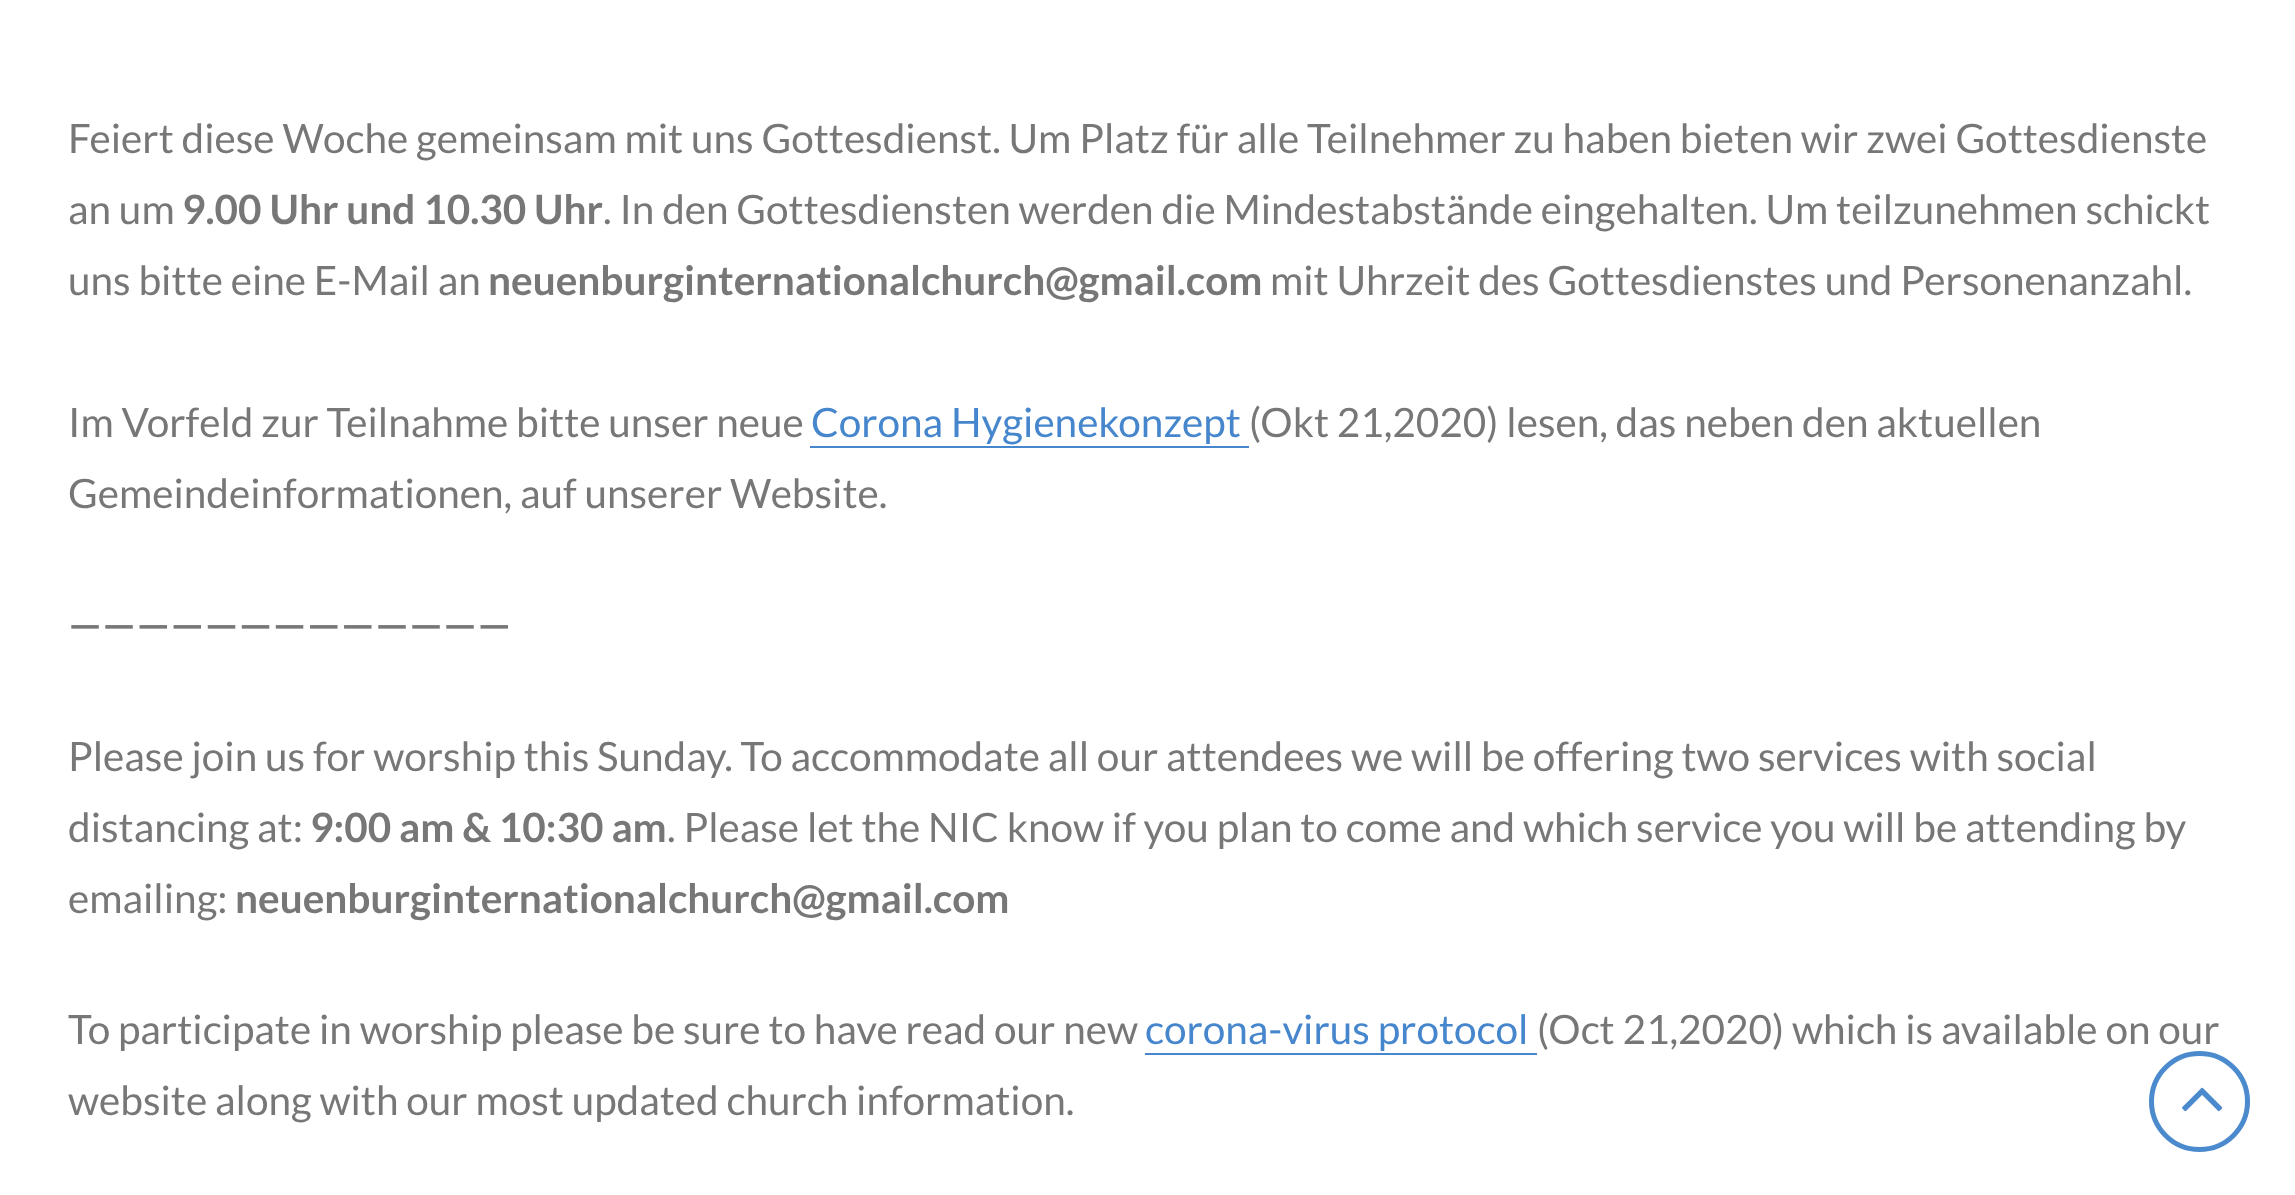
<!DOCTYPE html>
<meta charset="utf-8">
<style>body { margin: 0 } canvas { display: block }</style>
<canvas id="canvas" width="2295" height="1195"></canvas>
<script type="module">
  const canvas = document.getElementById("canvas");
  const ctx = canvas.getContext("2d");
  ctx.miterLimit = 4;
  ctx.fontKerning = "normal";
  async function loadImage(src) {
    const img = new Image();
    img.src = src;
    await img.decode();
    return img;
  }

  ctx.fillStyle = "#ffffff";
  ctx.fillRect(0, 0, 2295, 1195);
  ctx.font = "40.5px Lato";
  ctx.fillStyle = "#777777";
  ctx.fillText("Feiert diese Woche gemeinsam mit uns Gottesdienst. Um Platz für alle Teilnehmer zu haben bieten wir zwei Gottesdienste", 68, 153);
  ctx.fillText("an um", 68, 224);
  ctx.font = "bold 40.5px Lato";
  ctx.fillText("9.00 Uhr und 10.30 Uhr", 182, 224);
  ctx.font = "40.5px Lato";
  ctx.fillText(". In den Gottesdiensten werden die Mindestabstände eingehalten. Um teilzunehmen schickt", 603, 224);
  ctx.fillText("uns bitte eine E-Mail an", 68, 295);
  ctx.font = "bold 40.5px Lato";
  ctx.fillText("neuenburginternationalchurch@gmail.com", 488, 295);
  ctx.font = "40.5px Lato";
  ctx.fillText("mit Uhrzeit des Gottesdienstes und Personenanzahl.", 1270, 295);
  ctx.fillText("Im Vorfeld zur Teilnahme bitte unser neue", 68, 437);
  ctx.fillStyle = "#4686cc";
  ctx.fillText("Corona Hygienekonzept", 811, 437);
  ctx.beginPath();
  ctx.moveTo(810, 446);
  ctx.lineTo(810, 448);
  ctx.lineTo(1249, 448);
  ctx.lineTo(1249, 398);
  ctx.lineTo(1249, 446);
  ctx.closePath();
  ctx.fill();
  ctx.fillStyle = "#777777";
  ctx.fillText("(Okt 21,2020) lesen, das neben den aktuellen", 1249, 437);
  ctx.fillText("Gemeindeinformationen, auf unserer Website.", 68, 508);
  ctx.font = "bold 40.5px Lato";
  ctx.fillText("—————————————", 68, 639);
  ctx.font = "40.5px Lato";
  ctx.fillText("Please join us for worship this Sunday. To accommodate all our attendees we will be offering two services with social", 68, 771);
  ctx.fillText("distancing at:", 68, 842);
  ctx.font = "bold 40.5px Lato";
  ctx.fillText("9:00 am & 10:30 am", 310, 842);
  ctx.font = "40.5px Lato";
  ctx.fillText(". Please let the NIC know if you plan to come and which service you will be attending by", 667, 842);
  ctx.fillText("emailing:", 68, 913);
  ctx.font = "bold 40.5px Lato";
  ctx.fillText("neuenburginternationalchurch@gmail.com", 235, 913);
  ctx.font = "40.5px Lato";
  ctx.fillText("To participate in worship please be sure to have read our new", 68, 1044);
  ctx.fillStyle = "#4686cc";
  ctx.fillText("corona-virus protocol", 1145, 1044);
  ctx.beginPath();
  ctx.moveTo(1145, 1006);
  ctx.lineTo(1145, 1055);
  ctx.lineTo(1537, 1055);
  ctx.lineTo(1537, 1006);
  ctx.lineTo(1537, 1053);
  ctx.lineTo(1145, 1053);
  ctx.closePath();
  ctx.fill();
  ctx.fillStyle = "#777777";
  ctx.fillText("(Oct 21,2020) which is available on our", 1537, 1044);
  ctx.fillText("website along with our most updated church information.", 68, 1115);
  ctx.beginPath();
  ctx.arc(2199.5, 1101.5, 48, 0, Math.PI * 2);
  ctx.strokeStyle = "#4c8ace";
  ctx.lineWidth = 5;
  ctx.stroke();
  ctx.drawImage(await loadImage("img1.png"), 2182, 1087, 41, 25);
</script>
